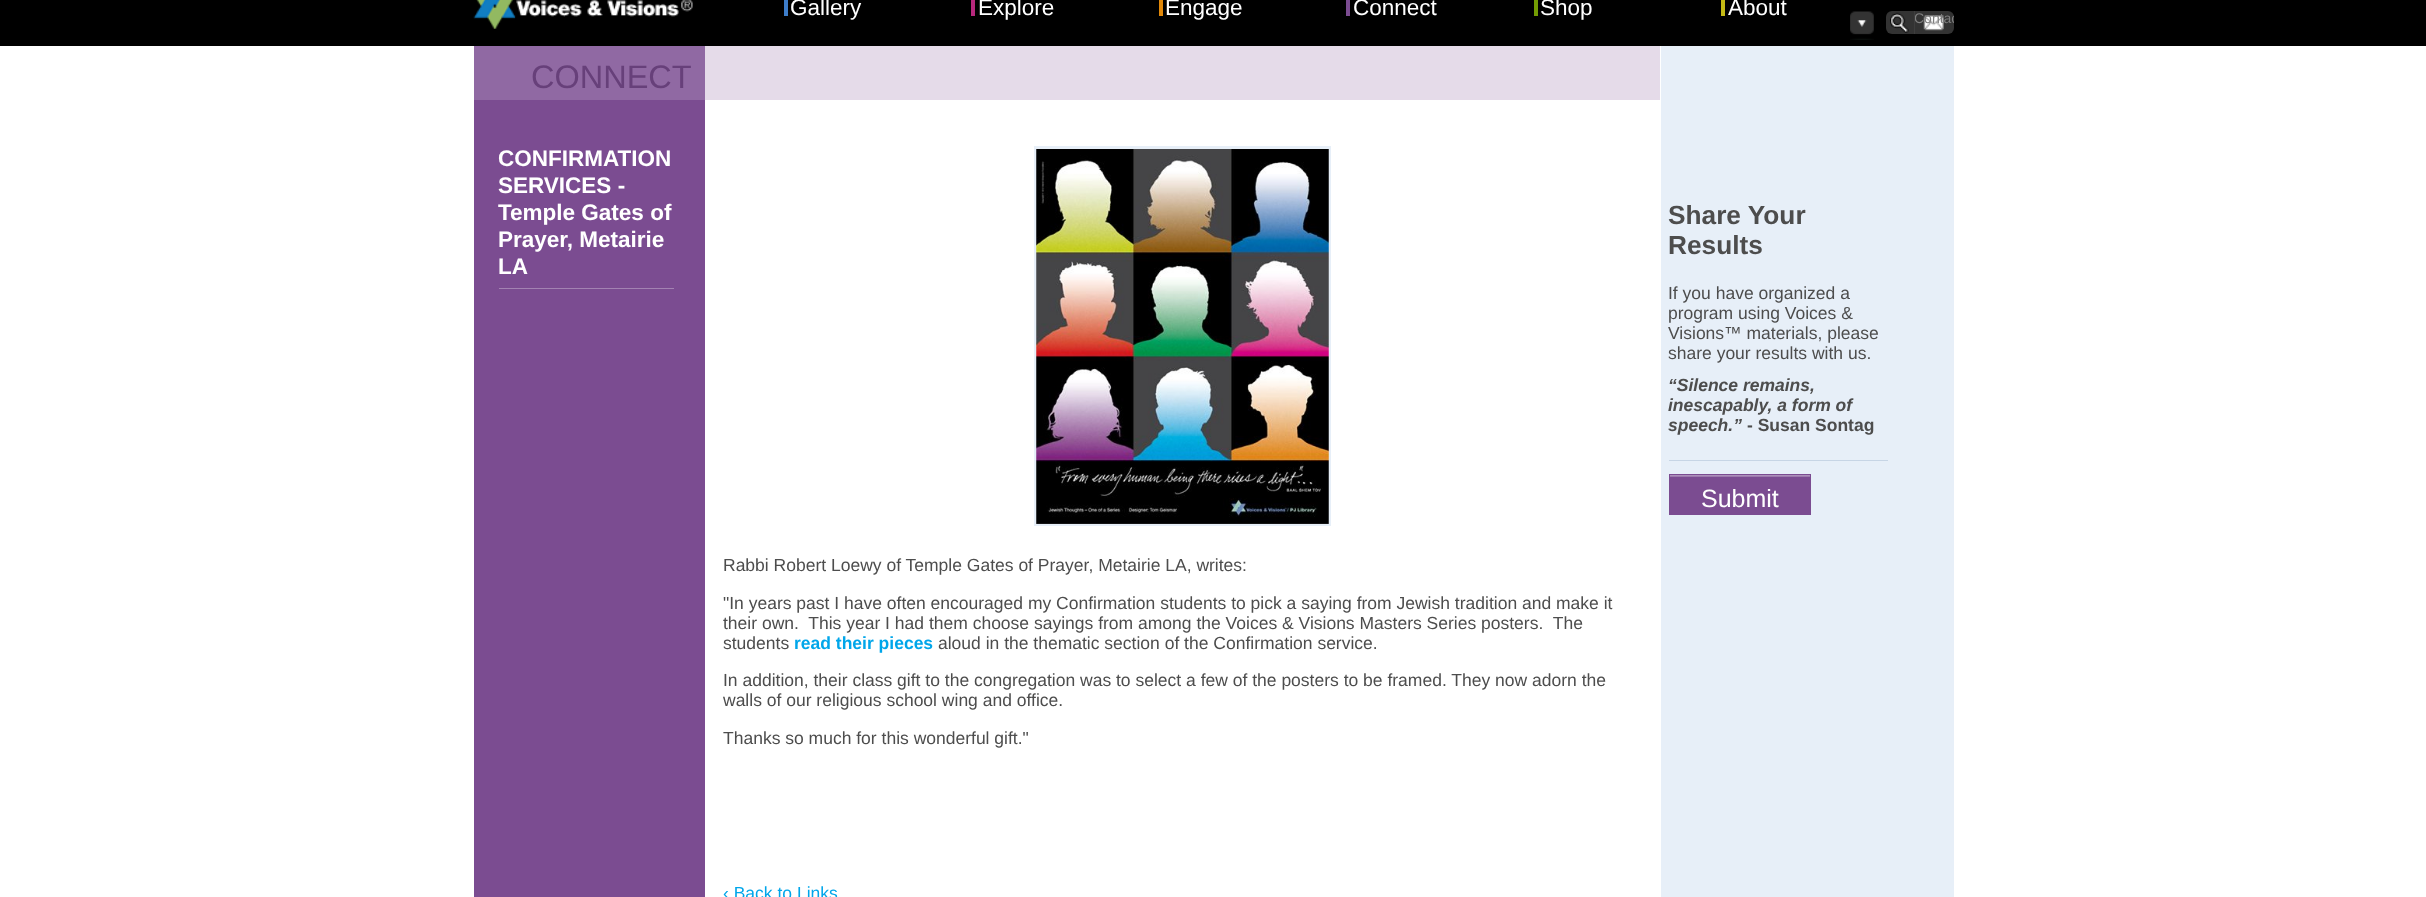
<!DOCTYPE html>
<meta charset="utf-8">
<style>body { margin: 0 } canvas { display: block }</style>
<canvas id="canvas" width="2426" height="897"></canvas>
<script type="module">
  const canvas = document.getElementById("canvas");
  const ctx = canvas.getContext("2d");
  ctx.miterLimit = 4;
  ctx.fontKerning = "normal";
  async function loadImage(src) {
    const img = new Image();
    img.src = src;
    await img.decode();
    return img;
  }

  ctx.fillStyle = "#ffffff";
  ctx.fillRect(0, 0, 2426, 897);
  ctx.fillStyle = "#000000";
  ctx.fillRect(0, 0, 2426, 46);
  ctx.drawImage(await loadImage("img1.png"), 473, 0, 220, 29);
  ctx.fillStyle = "#3d7dca";
  ctx.fillRect(784, 0, 4, 16);
  ctx.font = "22.5px Liberation Sans";
  ctx.fillStyle = "#ffffff";
  ctx.fillText("Gallery", 790, 15);
  ctx.fillStyle = "#b8287d";
  ctx.fillRect(971, 0, 4, 16);
  ctx.fillStyle = "#ffffff";
  ctx.fillText("Explore", 978, 15);
  ctx.fillStyle = "#e18809";
  ctx.fillRect(1159, 0, 4, 16);
  ctx.fillStyle = "#ffffff";
  ctx.fillText("Engage", 1165, 15);
  ctx.fillStyle = "#7b4c91";
  ctx.fillRect(1346, 0, 4, 16);
  ctx.fillStyle = "#ffffff";
  ctx.fillText("Connect", 1353, 15);
  ctx.fillStyle = "#739c03";
  ctx.fillRect(1534, 0, 4, 16);
  ctx.fillStyle = "#ffffff";
  ctx.fillText("Shop", 1540, 15);
  ctx.fillStyle = "#c4ba14";
  ctx.fillRect(1721, 0, 4, 16);
  ctx.fillStyle = "#ffffff";
  ctx.fillText("About", 1728, 15);
  ctx.drawImage(await loadImage("img2.png"), 1850, 11, 24, 29);
  ctx.fillStyle = "#333333";
  ctx.beginPath();
  ctx.roundRect(1886, 11, 28, 23, [6, 0, 0, 6]);
  ctx.fill();
  ctx.drawImage(await loadImage("img3.png"), 1890, 12, 19, 21);
  ctx.beginPath();
  ctx.roundRect(1914, 11, 40, 23, [0, 6, 6, 0]);
  ctx.fill();
  ctx.drawImage(await loadImage("img4.png"), 1923, 15, 21, 16);
  ctx.fillStyle = "#3e3e3e";
  ctx.fillRect(1914, 11, 1, 23);
  ctx.save();
  ctx.beginPath();
  ctx.roundRect(1915, 11, 39, 23, [0, 6, 6, 0]);
  ctx.clip();
  ctx.font = "14px Liberation Sans";
  ctx.fillStyle = "#7f7f7f";
  ctx.fillText("Contac", 1914, 23);
  ctx.restore();
  ctx.fillStyle = "#7b4c91";
  ctx.fillRect(474, 100, 231, 797);
  ctx.fillStyle = "#9069a3";
  ctx.fillRect(474, 46, 231, 54);
  ctx.font = "32.5px Liberation Sans";
  ctx.fillStyle = "#67407a";
  ctx.fillText("CONNECT", 531, 88);
  ctx.fillStyle = "#a382b2";
  ctx.fillRect(499, 288, 175, 1);
  ctx.font = "bold 22.5px Liberation Sans";
  ctx.fillStyle = "#ffffff";
  ctx.fillText("CONFIRMATION", 498, 166);
  ctx.fillText("SERVICES -", 498, 193);
  ctx.fillText("Temple Gates of", 498, 220);
  ctx.fillText("Prayer, Metairie", 498, 247);
  ctx.fillText("LA", 498, 274);
  ctx.fillStyle = "#e7eff8";
  ctx.fillRect(1661, 46, 293, 851);
  ctx.font = "bold 26.25px Liberation Sans";
  ctx.fillStyle = "#4d4d4d";
  ctx.fillText("Share Your", 1668, 224);
  ctx.fillText("Results", 1668, 254);
  ctx.font = "17.5px Liberation Sans";
  ctx.fillText("If you have organized a", 1668, 299);
  ctx.fillText("program using Voices &", 1668, 319);
  ctx.fillText("Visions™ materials, please", 1668, 339);
  ctx.fillText("share your results with us.", 1668, 359);
  ctx.font = "italic bold 17.5px Liberation Sans";
  ctx.fillText("“Silence remains,", 1668, 391);
  ctx.fillText("inescapably, a form of", 1668, 411);
  ctx.fillText("speech.”", 1668, 431);
  ctx.font = "bold 17.5px Liberation Sans";
  ctx.fillText("- Susan Sontag", 1747, 431);
  ctx.fillStyle = "#c7d5e5";
  ctx.fillRect(1669, 460, 219, 1);
  ctx.fillStyle = "#7b4c91";
  ctx.fillRect(1670, 475, 140, 39);
  ctx.drawImage(await loadImage("img5.png"), 1670, 475, 140, 2);
  ctx.strokeStyle = "#7b4c91";
  ctx.strokeRect(1669.5, 474.5, 141, 40);
  ctx.font = "25px Liberation Sans";
  ctx.fillStyle = "#ffffff";
  ctx.fillText("Submit", 1701, 507);
  ctx.fillStyle = "#e5dbe9";
  ctx.fillRect(705, 46, 955, 54);
  ctx.strokeStyle = "#e7eff8";
  ctx.lineWidth = 3;
  ctx.strokeRect(1035.5, 147.5, 294, 377);
  ctx.drawImage(await loadImage("img6.png"), 1036, 149, 293, 375);
  ctx.font = "17.5px Liberation Sans";
  ctx.fillStyle = "#4d4d4d";
  ctx.fillText("Rabbi Robert Loewy of Temple Gates of Prayer, Metairie LA, writes:", 723, 571);
  ctx.fillText("\"In years past I have often encouraged my Confirmation students to pick a saying from Jewish tradition and make it", 723, 609);
  ctx.fillText("their own.  This year I had them choose sayings from among the Voices & Visions Masters Series posters.  The", 723, 629);
  ctx.fillText("students", 723, 649);
  ctx.font = "bold 17.5px Liberation Sans";
  ctx.fillStyle = "#00a6ea";
  ctx.fillText("read their pieces", 794, 649);
  ctx.font = "17.5px Liberation Sans";
  ctx.fillStyle = "#4d4d4d";
  ctx.fillText("aloud in the thematic section of the Confirmation service.", 938, 649);
  ctx.fillText("In addition, their class gift to the congregation was to select a few of the posters to be framed. They now adorn the", 723, 686);
  ctx.fillText("walls of our religious school wing and office.", 723, 706);
  ctx.fillText("Thanks so much for this wonderful gift.\"", 723, 744);
  ctx.fillStyle = "#00a6ea";
  ctx.fillText("‹ Back to Links", 723, 899);
</script>
